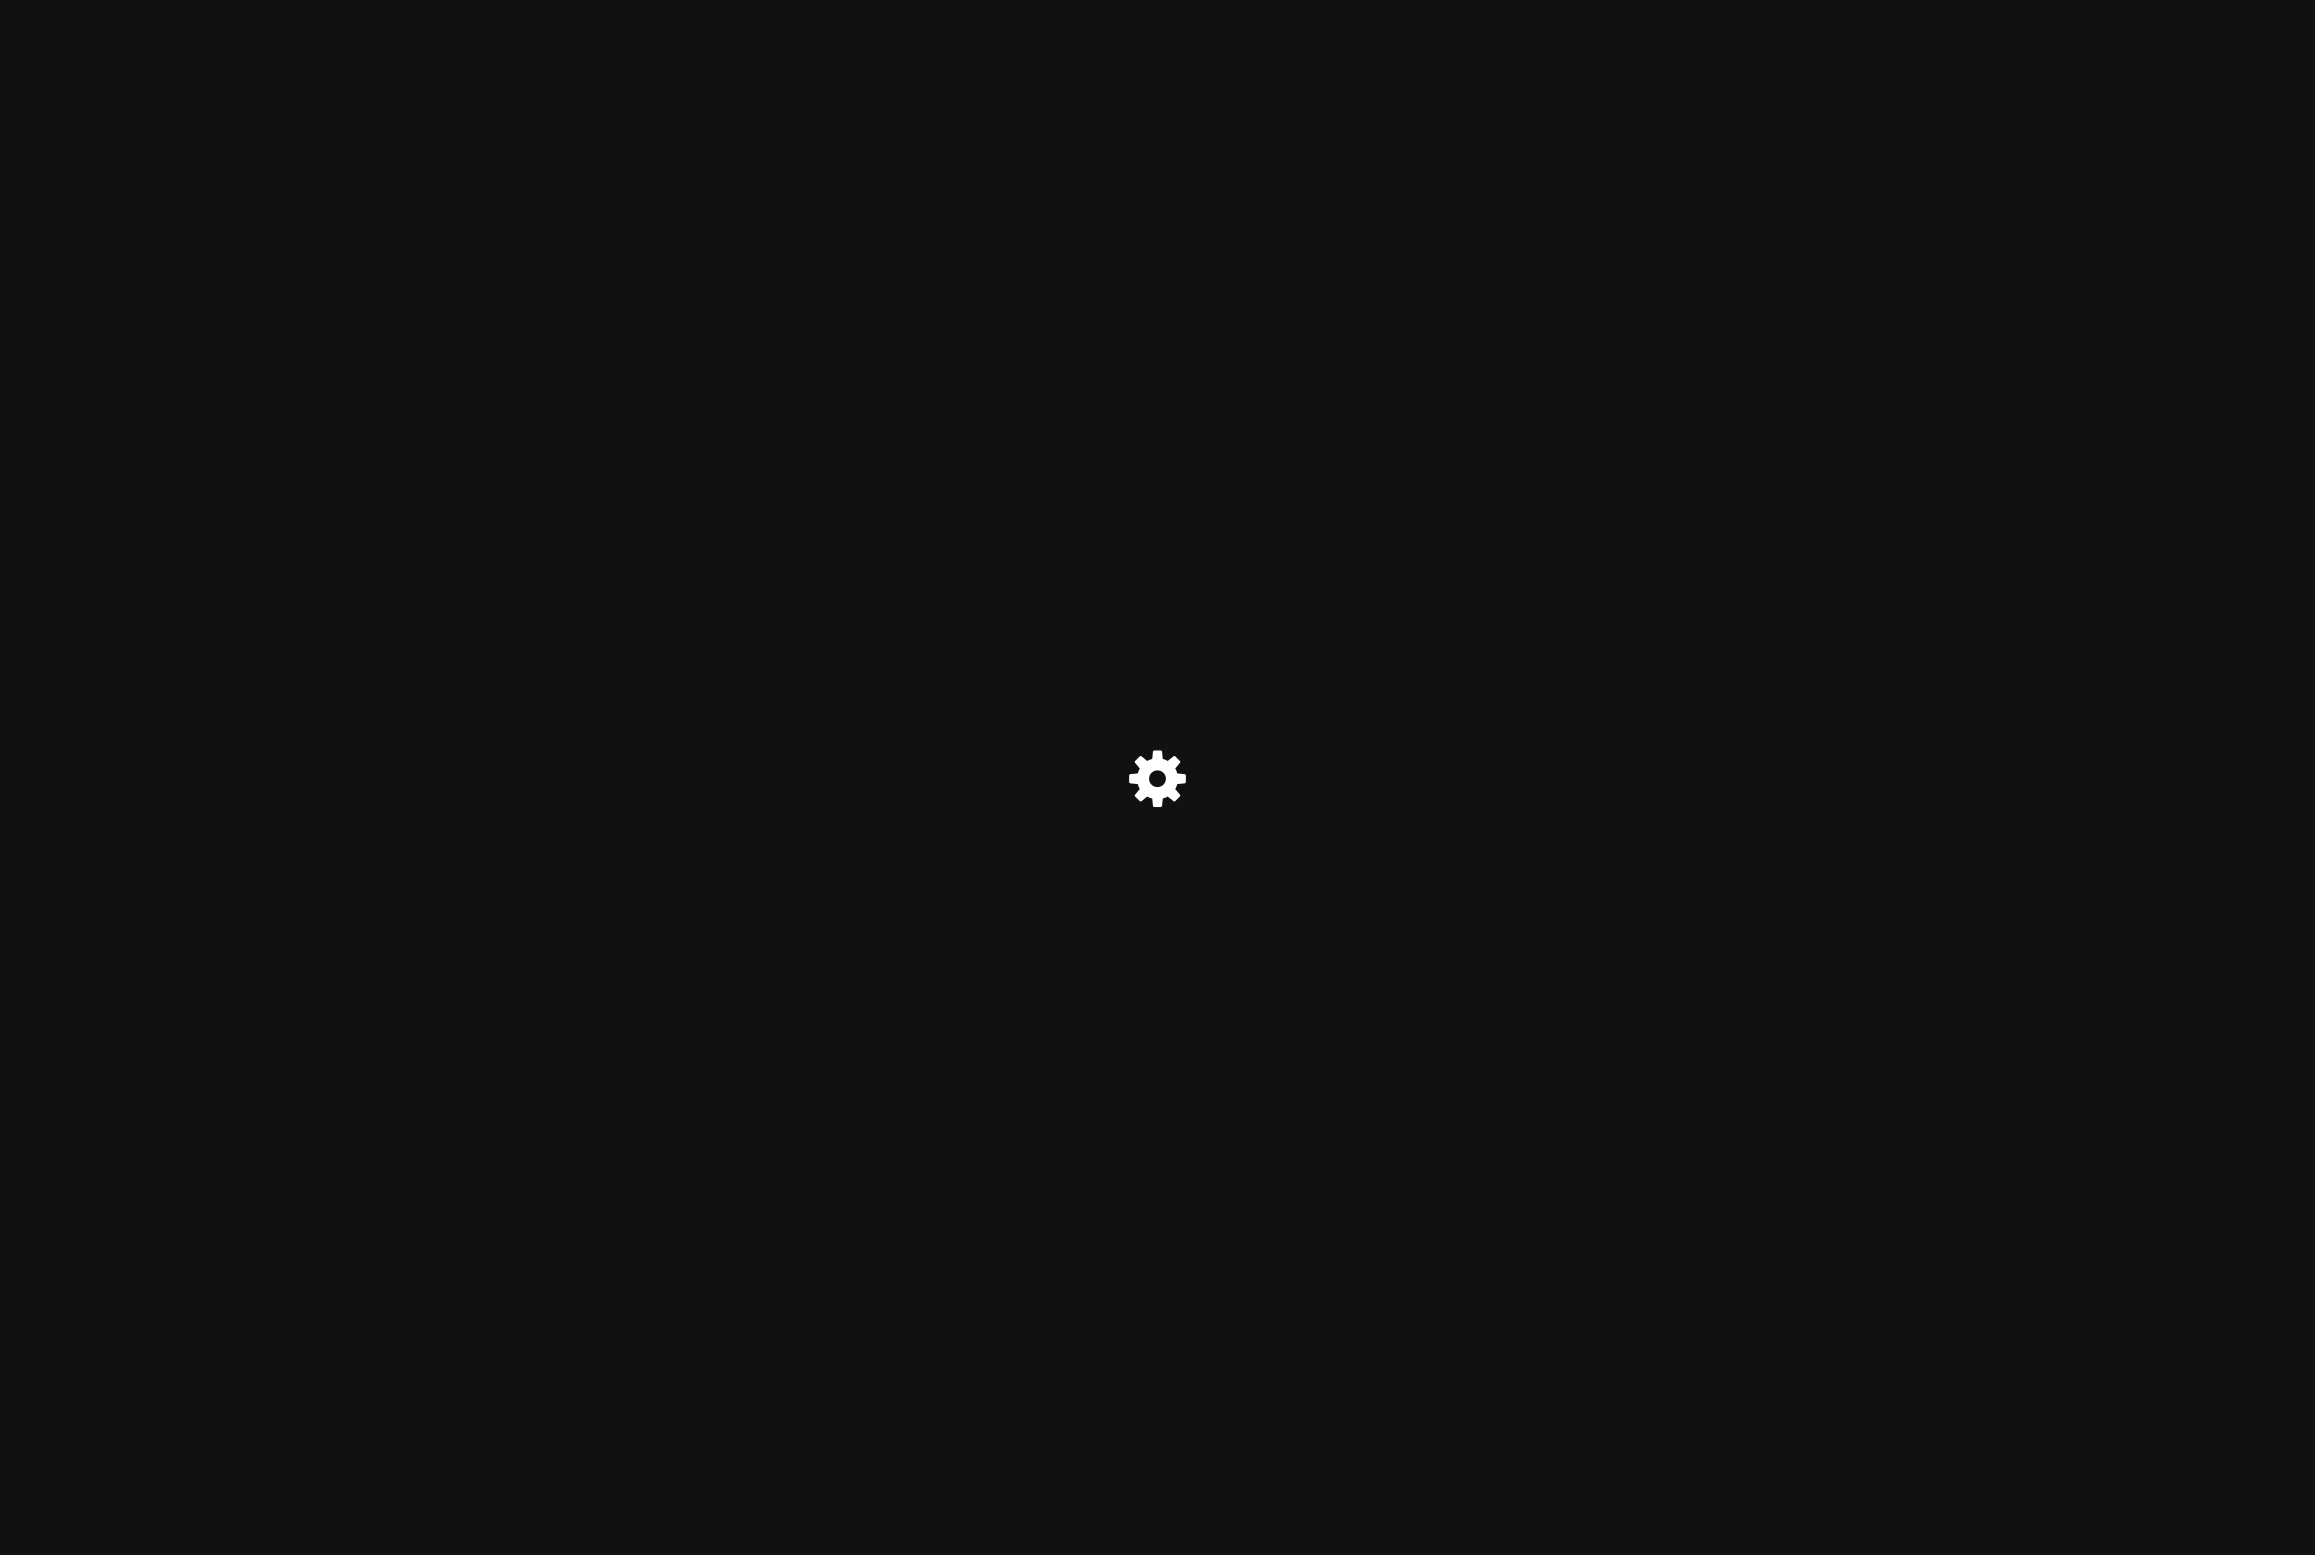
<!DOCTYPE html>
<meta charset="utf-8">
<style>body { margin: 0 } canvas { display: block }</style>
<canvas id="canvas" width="2315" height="1555"></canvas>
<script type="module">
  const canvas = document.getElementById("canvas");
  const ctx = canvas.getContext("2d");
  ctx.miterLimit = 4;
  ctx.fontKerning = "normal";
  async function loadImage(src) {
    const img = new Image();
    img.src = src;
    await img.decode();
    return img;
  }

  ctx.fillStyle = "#111111";
  ctx.fillRect(0, 0, 2315, 1555);
  ctx.drawImage(await loadImage("img1.png"), 1129, 750, 57, 58);
</script>
